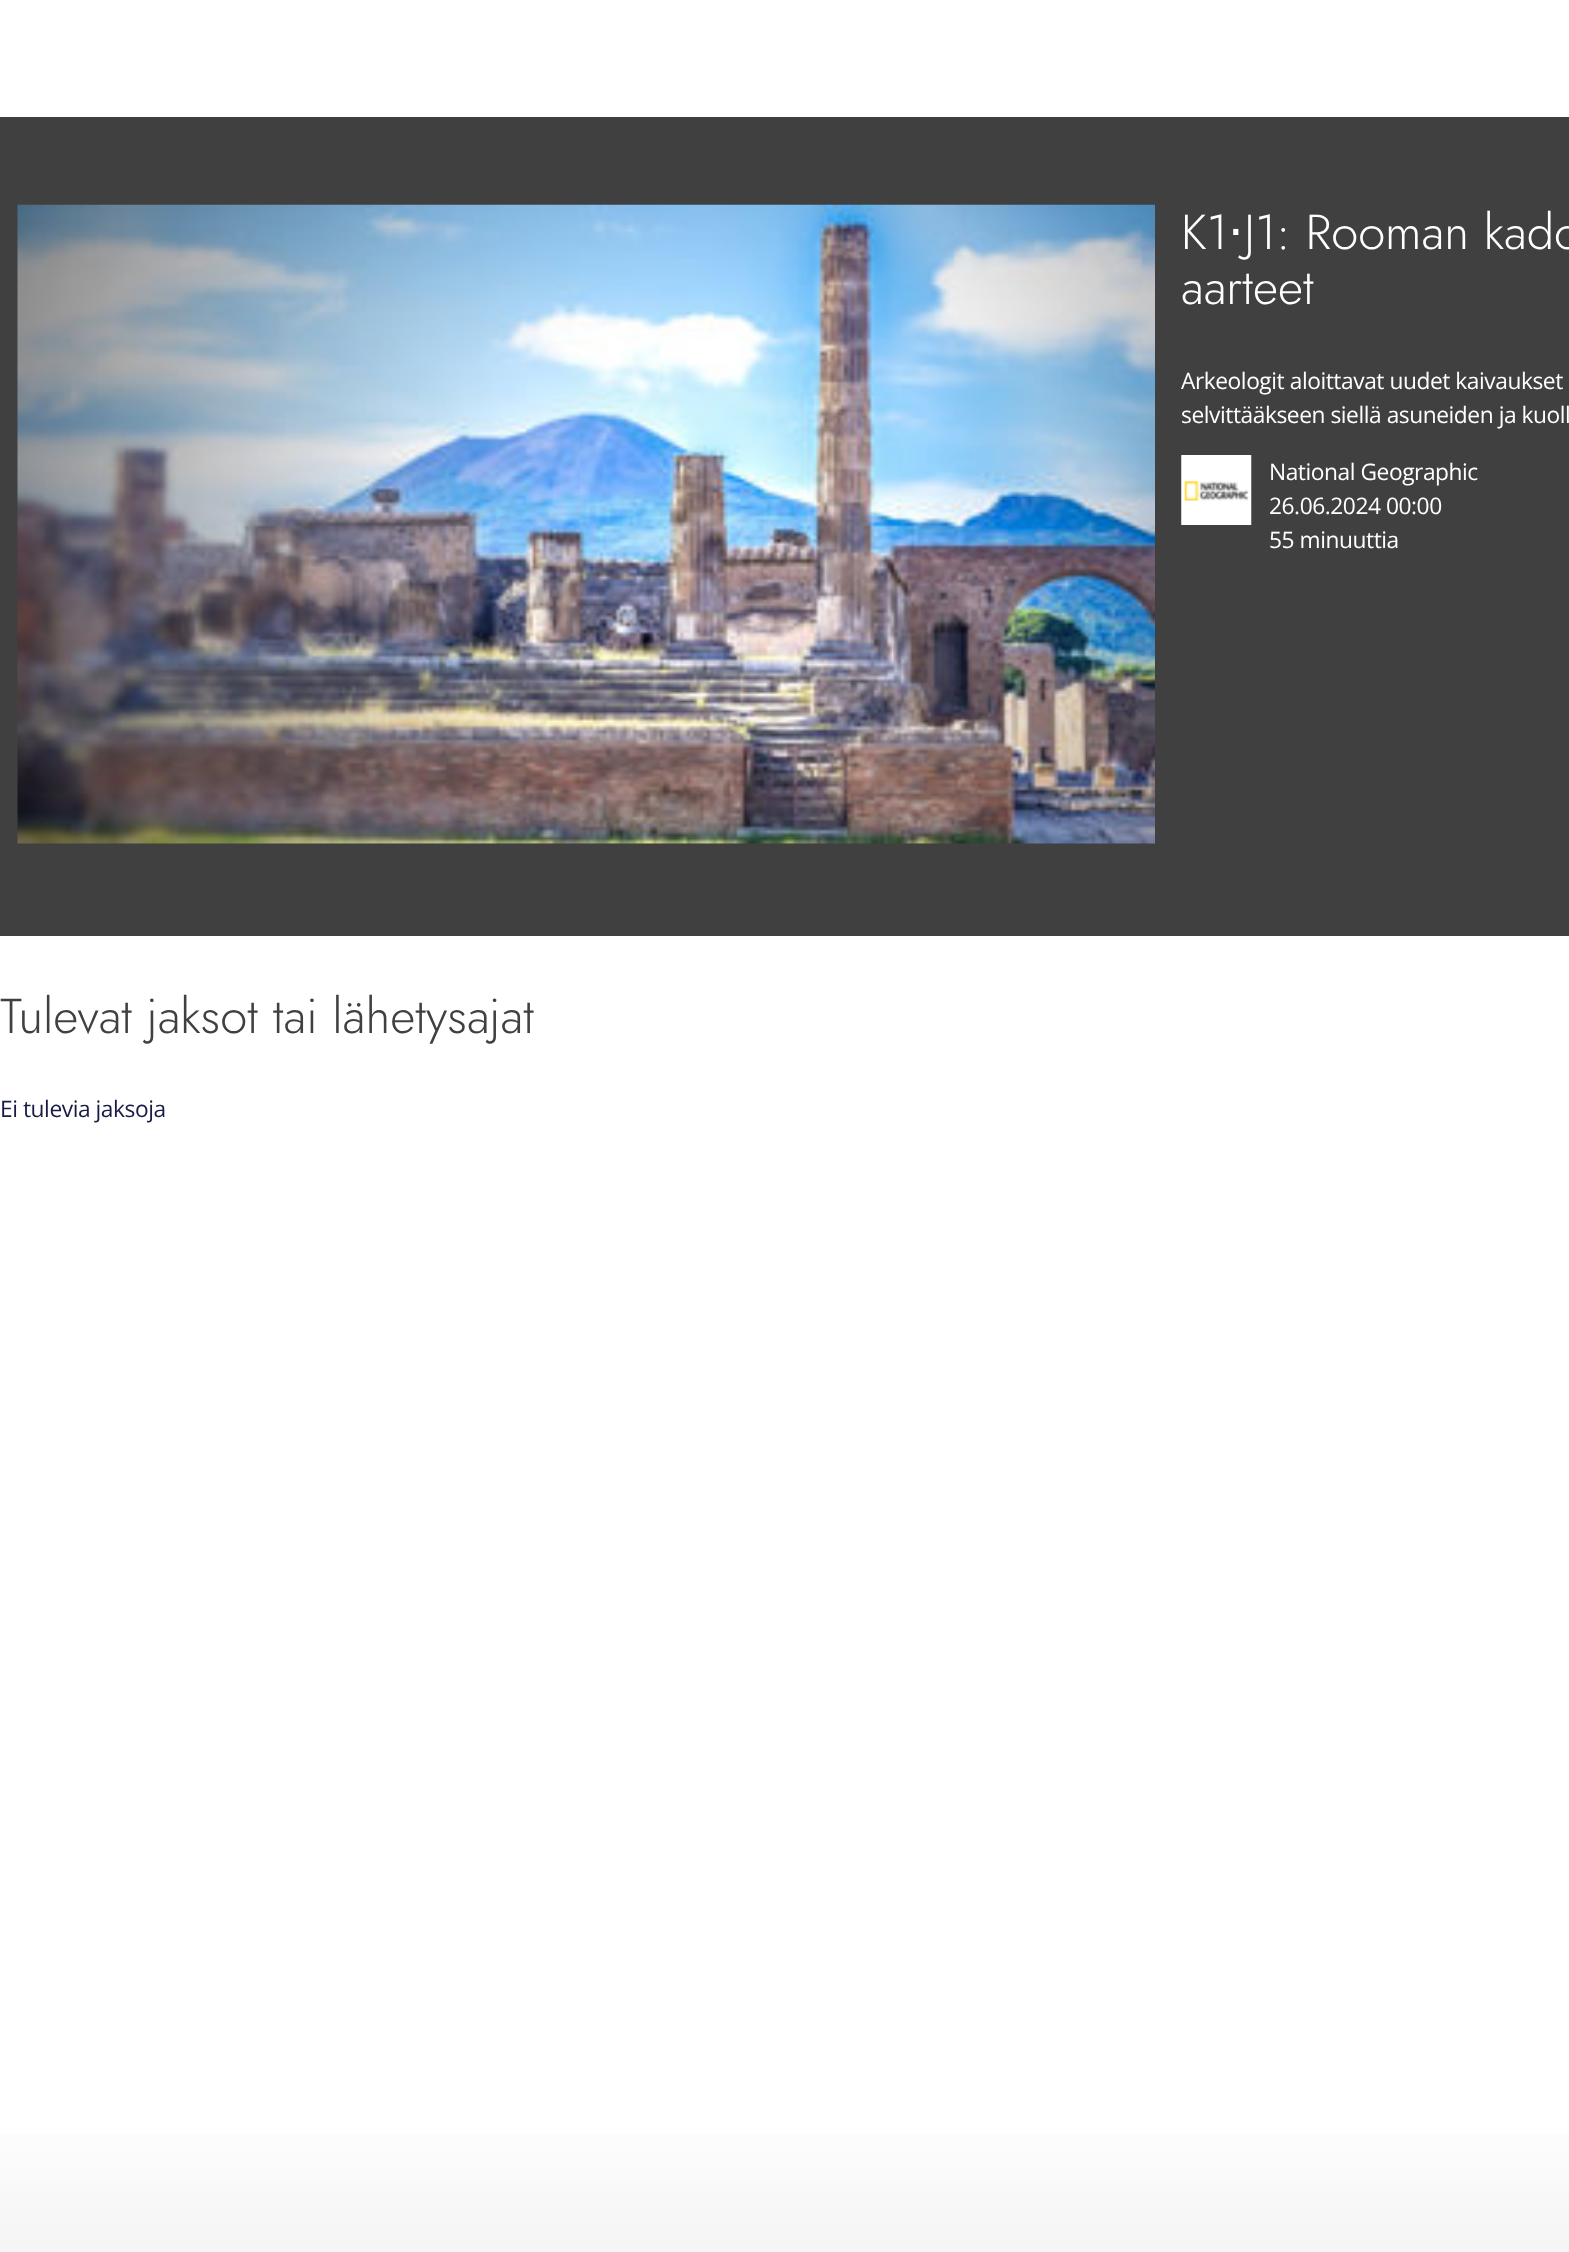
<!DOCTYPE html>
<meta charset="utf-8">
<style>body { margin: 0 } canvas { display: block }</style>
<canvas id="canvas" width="1569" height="2252"></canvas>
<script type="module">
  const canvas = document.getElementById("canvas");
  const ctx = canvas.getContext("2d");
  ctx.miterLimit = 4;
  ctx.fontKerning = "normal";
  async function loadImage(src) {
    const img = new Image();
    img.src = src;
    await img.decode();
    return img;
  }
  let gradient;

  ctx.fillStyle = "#ffffff";
  ctx.fillRect(0, 0, 1569, 2252);
  gradient = ctx.createLinearGradient(785, 0, 785, 2252);
  gradient.addColorStop(0, "#ffffff");
  gradient.addColorStop(0.93, "#ffffff");
  gradient.addColorStop(1, "#f5f5f5");
  ctx.fillStyle = gradient;
  ctx.fillRect(0, 2134, 1569, 118);
  ctx.fillStyle = "#404041";
  ctx.fillRect(0, 117, 1569, 819);
  ctx.drawImage(await loadImage("img1.png"), 17, 204, 1138, 640);
  ctx.font = "300 49px Jost";
  ctx.fillStyle = "#ffffff";
  ctx.fillText("K1", 1181, 249);
  ctx.font = "49px DejaVu Sans";
  ctx.fillText("⋅", 1228, 249);
  ctx.font = "300 49px Jost";
  ctx.fillText("J1: Rooman kado", 1244, 249);
  ctx.fillText("aarteet", 1181, 304);
  ctx.letterSpacing = "-0.45px";
  ctx.font = "22.75px Open Sans";
  ctx.fillText("Arkeologit aloittavat uudet kaivaukset", 1181, 389);
  ctx.fillText("selvittääkseen siellä asuneiden ja kuoll", 1181, 423);
  ctx.drawImage(await loadImage("img2.png"), 1181, 455, 71, 70);
  ctx.fillText("National Geographic", 1269, 480);
  ctx.fillText("26.06.2024 00:00", 1269, 514);
  ctx.fillText("55 minuuttia", 1269, 548);
  ctx.letterSpacing = "0px";
  ctx.font = "300 49px Jost";
  ctx.fillStyle = "#404041";
  ctx.fillText("Tulevat jaksot tai lähetysajat", 0, 1033);
  ctx.letterSpacing = "-0.45px";
  ctx.font = "22.75px Open Sans";
  ctx.fillStyle = "#171c43";
  ctx.fillText("Ei tulevia jaksoja", 0, 1117);
</script>
